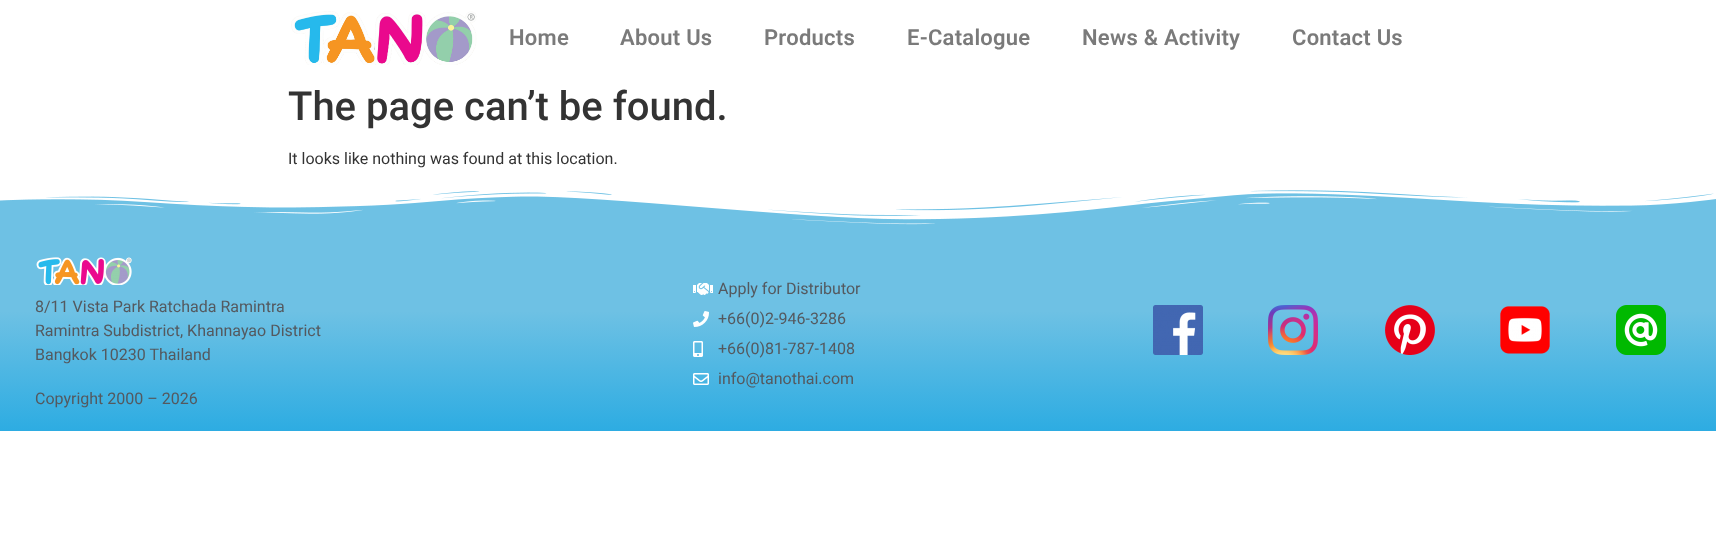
<!DOCTYPE html>
<meta charset="utf-8">
<style>body { margin: 0 } canvas { display: block }</style>
<canvas id="canvas" width="1716" height="554"></canvas>
<script type="module">
  const canvas = document.getElementById("canvas");
  const ctx = canvas.getContext("2d");
  ctx.miterLimit = 4;
  ctx.fontKerning = "normal";
  async function loadImage(src) {
    const img = new Image();
    img.src = src;
    await img.decode();
    return img;
  }
  let gradient;

  ctx.fillStyle = "#ffffff";
  ctx.fillRect(0, 0, 1716, 554);
  ctx.drawImage(await loadImage("img1.png"), 291, 11, 186, 54);
  ctx.letterSpacing = "0.25px";
  ctx.font = "600 22px Roboto";
  ctx.fillStyle = "#7a7a7a";
  ctx.fillText("Home", 509, 45);
  ctx.fillText("About Us", 620, 45);
  ctx.fillText("Products", 764, 45);
  ctx.fillText("E-Catalogue", 907, 45);
  ctx.fillText("News & Activity", 1082, 45);
  ctx.fillText("Contact Us", 1292, 45);
  ctx.letterSpacing = "0px";
  ctx.font = "500 40px Roboto";
  ctx.fillStyle = "#333333";
  ctx.fillText("The page can’t be found.", 288, 120);
  ctx.font = "16px Roboto";
  ctx.fillText("It looks like nothing was found at this location.", 288, 164);
  gradient = ctx.createLinearGradient(858, 186, 858, 431);
  gradient.addColorStop(0.51, "#6ec1e4");
  gradient.addColorStop(1, "#2dace2");
  ctx.fillStyle = gradient;
  ctx.fillRect(0, 190, 1716, 241);
  ctx.drawImage(await loadImage("img2.png"), 0, 186, 1716, 39);
  ctx.drawImage(await loadImage("img3.png"), 36, 257, 96, 28);
  ctx.fillStyle = "#54595f";
  ctx.fillText("8/11 Vista Park Ratchada Ramintra", 35, 312);
  ctx.fillText("Ramintra Subdistrict, Khannayao District", 35, 336);
  ctx.fillText("Bangkok 10230 Thailand", 35, 360);
  ctx.fillText("Copyright 2000 – 2026", 35, 404);
  ctx.drawImage(await loadImage("img4.png"), 693, 283, 20, 12);
  ctx.fillText("Apply for Distributor", 718, 294);
  ctx.drawImage(await loadImage("img5.png"), 693, 311, 16, 16);
  ctx.fillText("+66(0)2-946-3286", 718, 324);
  ctx.drawImage(await loadImage("img6.png"), 693, 341, 10, 16);
  ctx.fillText("+66(0)81-787-1408", 718, 354);
  ctx.drawImage(await loadImage("img7.png"), 693, 373, 16, 12);
  ctx.fillText("info@tanothai.com", 718, 384);
  ctx.drawImage(await loadImage("img8.png"), 1153, 305, 50, 50);
  ctx.drawImage(await loadImage("img9.png"), 1268, 305, 50, 50);
  ctx.drawImage(await loadImage("img10.png"), 1385, 305, 50, 50);
  ctx.drawImage(await loadImage("img11.png"), 1500, 306, 50, 48);
  ctx.drawImage(await loadImage("img12.png"), 1616, 305, 50, 50);
</script>
